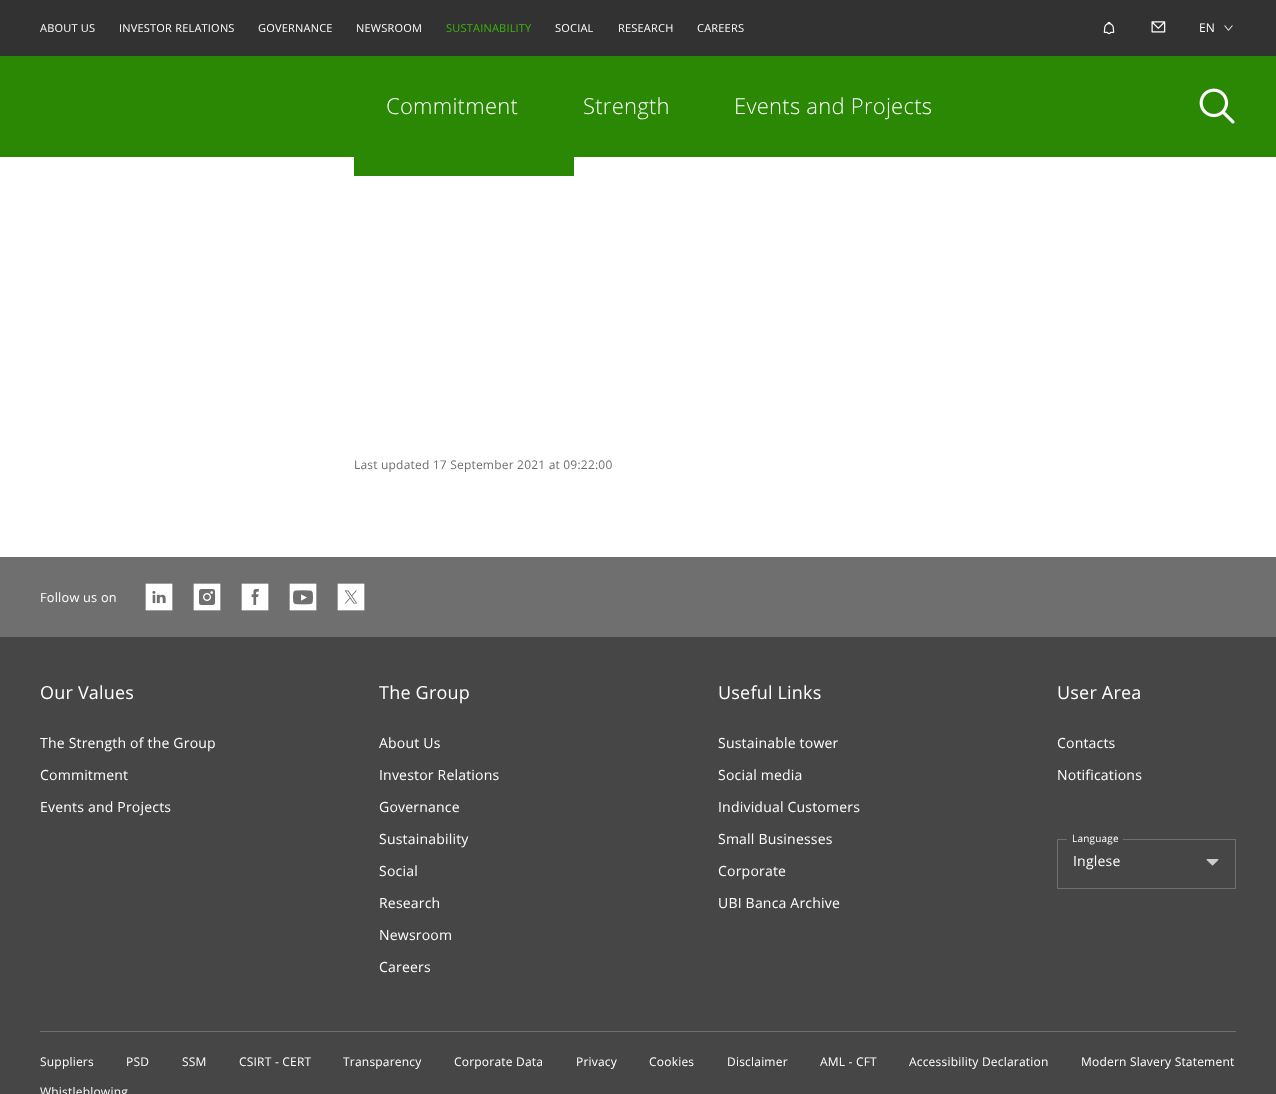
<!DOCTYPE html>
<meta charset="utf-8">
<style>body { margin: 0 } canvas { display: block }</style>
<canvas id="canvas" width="1276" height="1094"></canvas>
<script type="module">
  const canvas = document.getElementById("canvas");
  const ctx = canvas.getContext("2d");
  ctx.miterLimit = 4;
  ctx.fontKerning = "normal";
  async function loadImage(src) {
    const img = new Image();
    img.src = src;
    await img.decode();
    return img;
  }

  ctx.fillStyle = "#ffffff";
  ctx.fillRect(0, 0, 1276, 1094);
  ctx.fillStyle = "#323232";
  ctx.fillRect(0, 0, 1276, 56);
  ctx.letterSpacing = "0.2px";
  ctx.font = "11px Open Sans";
  ctx.fillStyle = "#ffffff";
  ctx.fillText("ABOUT US", 40, 32);
  ctx.fillText("INVESTOR RELATIONS", 119, 32);
  ctx.fillText("GOVERNANCE", 258, 32);
  ctx.fillText("NEWSROOM", 356, 32);
  ctx.fillStyle = "#3bb905";
  ctx.fillText("SUSTAINABILITY", 446, 32);
  ctx.fillStyle = "#ffffff";
  ctx.fillText("SOCIAL", 555, 32);
  ctx.fillText("RESEARCH", 618, 32);
  ctx.fillText("CAREERS", 697, 32);
  ctx.drawImage(await loadImage("img1.png"), 1103, 21, 12, 14);
  ctx.drawImage(await loadImage("img2.png"), 1151, 21, 15, 12);
  ctx.font = "12px Open Sans";
  ctx.fillText("EN", 1199, 32);
  ctx.drawImage(await loadImage("img3.png"), 1224, 25, 9, 6);
  ctx.fillStyle = "#2b8804";
  ctx.fillRect(0, 56, 1276, 101);
  ctx.letterSpacing = "0.25px";
  ctx.font = "300 22px Open Sans";
  ctx.fillStyle = "#ffffff";
  ctx.fillText("Commitment", 386, 114);
  ctx.fillText("Strength", 583, 114);
  ctx.fillText("Events and Projects", 734, 114);
  ctx.drawImage(await loadImage("img4.png"), 1199, 88, 36, 36);
  ctx.fillStyle = "#2b8804";
  ctx.fillRect(354, 157, 220, 19);
  ctx.letterSpacing = "0.2px";
  ctx.font = "12px Open Sans";
  ctx.fillStyle = "#6f6f6f";
  ctx.fillText("Last updated 17 September 2021 at 09:22:00", 354, 469);
  ctx.fillRect(0, 557, 1276, 80);
  ctx.font = "12.75px Open Sans";
  ctx.fillStyle = "#ffffff";
  ctx.fillText("Follow us on", 40, 602);
  ctx.drawImage(await loadImage("img5.png"), 145, 583, 28, 28);
  ctx.drawImage(await loadImage("img6.png"), 193, 583, 28, 28);
  ctx.drawImage(await loadImage("img7.png"), 241, 583, 28, 28);
  ctx.drawImage(await loadImage("img8.png"), 289, 583, 28, 28);
  ctx.drawImage(await loadImage("img9.png"), 337, 583, 28, 28);
  ctx.fillStyle = "#464646";
  ctx.fillRect(0, 637, 1276, 457);
  ctx.font = "18px Open Sans";
  ctx.fillStyle = "#ffffff";
  ctx.fillText("Our Values", 40, 699);
  ctx.font = "14px Open Sans";
  ctx.fillText("The Strength of the Group", 40, 748);
  ctx.fillText("Commitment", 40, 780);
  ctx.fillText("Events and Projects", 40, 812);
  ctx.font = "18px Open Sans";
  ctx.fillText("The Group", 379, 699);
  ctx.font = "14px Open Sans";
  ctx.fillText("About Us", 379, 748);
  ctx.fillText("Investor Relations", 379, 780);
  ctx.fillText("Governance", 379, 812);
  ctx.fillText("Sustainability", 379, 844);
  ctx.fillText("Social", 379, 876);
  ctx.fillText("Research", 379, 908);
  ctx.fillText("Newsroom", 379, 940);
  ctx.fillText("Careers", 379, 972);
  ctx.font = "18px Open Sans";
  ctx.fillText("Useful Links", 718, 699);
  ctx.font = "14px Open Sans";
  ctx.fillText("Sustainable tower", 718, 748);
  ctx.fillText("Social media", 718, 780);
  ctx.fillText("Individual Customers", 718, 812);
  ctx.fillText("Small Businesses", 718, 844);
  ctx.fillText("Corporate", 718, 876);
  ctx.fillText("UBI Banca Archive", 718, 908);
  ctx.font = "18px Open Sans";
  ctx.fillText("User Area", 1057, 699);
  ctx.font = "14px Open Sans";
  ctx.fillText("Contacts", 1057, 748);
  ctx.fillText("Notifications", 1057, 780);
  ctx.strokeStyle = "#6f6f6f";
  ctx.strokeRect(1057.5, 839.5, 178, 49);
  ctx.fillStyle = "#464646";
  ctx.fillRect(1067, 839, 56, 1);
  ctx.font = "10px Open Sans";
  ctx.fillStyle = "#ffffff";
  ctx.fillText("Language", 1072, 842);
  ctx.font = "14px Open Sans";
  ctx.fillText("Inglese", 1073, 866);
  ctx.drawImage(await loadImage("img10.png"), 1206, 859, 13, 7);
  ctx.fillStyle = "#6f6f6f";
  ctx.fillRect(40, 1031, 1196, 1);
  ctx.font = "12px Open Sans";
  ctx.fillStyle = "#ffffff";
  ctx.fillText("Suppliers", 40, 1066);
  ctx.fillText("PSD", 126, 1066);
  ctx.fillText("SSM", 182, 1066);
  ctx.fillText("CSIRT - CERT", 239, 1066);
  ctx.fillText("Transparency", 343, 1066);
  ctx.fillText("Corporate Data", 454, 1066);
  ctx.fillText("Privacy", 576, 1066);
  ctx.fillText("Cookies", 649, 1066);
  ctx.fillText("Disclaimer", 727, 1066);
  ctx.fillText("AML - CFT", 820, 1066);
  ctx.fillText("Accessibility Declaration", 909, 1066);
  ctx.fillText("Modern Slavery Statement", 1081, 1066);
  ctx.fillText("Whistleblowing", 40, 1096);
</script>
